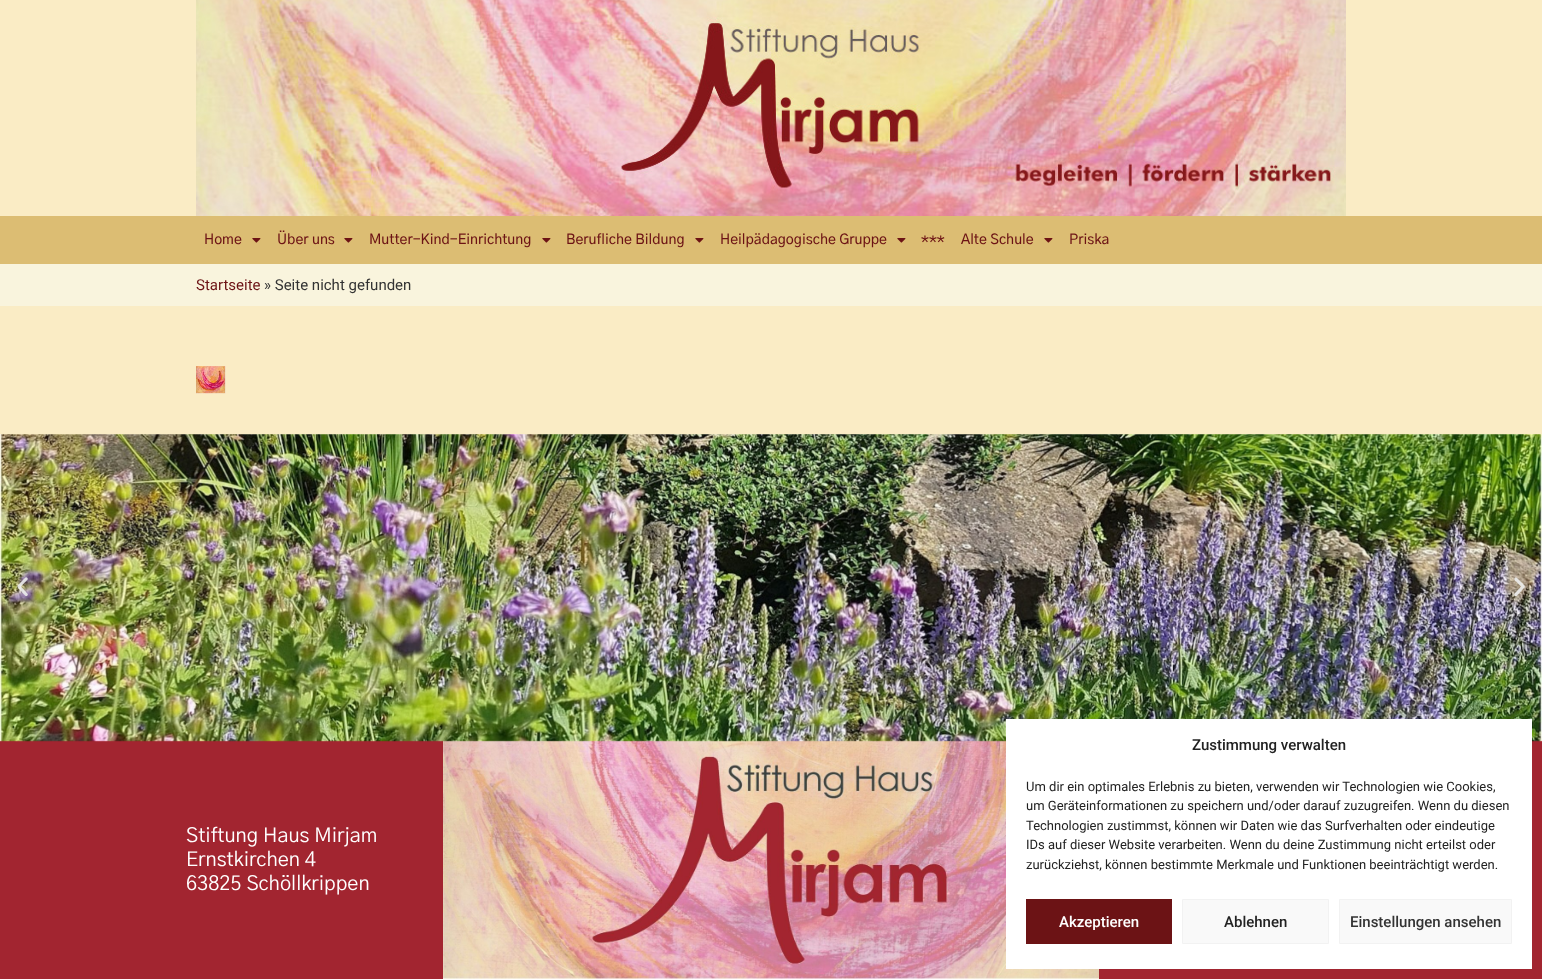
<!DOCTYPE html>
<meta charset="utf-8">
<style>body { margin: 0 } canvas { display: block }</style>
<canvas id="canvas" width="1542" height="979"></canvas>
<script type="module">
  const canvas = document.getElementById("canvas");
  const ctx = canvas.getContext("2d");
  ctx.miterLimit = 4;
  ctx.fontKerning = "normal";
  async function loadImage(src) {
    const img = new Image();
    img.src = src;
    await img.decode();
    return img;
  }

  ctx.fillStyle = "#faecc5";
  ctx.fillRect(0, 0, 1542, 979);
  ctx.drawImage(await loadImage("img1.png"), 196, 0, 1150, 216);
  ctx.fillStyle = "#dcbd73";
  ctx.fillRect(0, 216, 1542, 48);
  ctx.font = "500 14px 'Gothic A1'";
  ctx.fillStyle = "#6c1315";
  ctx.fillText("Home", 204, 244);
  ctx.drawImage(await loadImage("img2.png"), 252, 238, 9, 5);
  ctx.fillText("Über uns", 277, 244);
  ctx.drawImage(await loadImage("img2.png"), 344, 238, 9, 5);
  ctx.fillText("Mutter-Kind-Einrichtung", 369, 244);
  ctx.drawImage(await loadImage("img2.png"), 542, 238, 9, 5);
  ctx.fillText("Berufliche Bildung", 566, 244);
  ctx.drawImage(await loadImage("img2.png"), 695, 238, 9, 5);
  ctx.fillText("Heilpädagogische Gruppe", 720, 244);
  ctx.drawImage(await loadImage("img2.png"), 897, 238, 9, 5);
  ctx.fillText("***", 921, 244);
  ctx.fillText("Alte Schule", 961, 244);
  ctx.drawImage(await loadImage("img2.png"), 1044, 238, 9, 5);
  ctx.fillText("Priska", 1069, 244);
  ctx.fillStyle = "#f9f4dd";
  ctx.fillRect(0, 264, 1542, 42);
  ctx.font = "15px Roboto";
  ctx.fillStyle = "#6c1315";
  ctx.fillText("Startseite", 196, 290);
  ctx.fillStyle = "#333333";
  ctx.fillText("» Seite nicht gefunden", 264, 290);
  ctx.drawImage(await loadImage("img3.png"), 196, 366, 30, 28);
  ctx.fillStyle = "#a22530";
  ctx.fillRect(0, 740, 1542, 239);
  ctx.drawImage(await loadImage("img7.png"), 443, 740, 656, 239);
  ctx.drawImage(await loadImage("img4.png"), 0, 434, 1542, 308);
  ctx.drawImage(await loadImage("img5.png"), 17, 577, 11, 20);
  ctx.drawImage(await loadImage("img6.png"), 1514, 577, 11, 20);
  ctx.font = "20px 'Gothic A1'";
  ctx.fillStyle = "#ffffff";
  ctx.fillText("Stiftung Haus Mirjam", 186, 842);
  ctx.fillText("Ernstkirchen 4", 186, 866);
  ctx.fillText("63825 Schöllkrippen", 186, 890);
  ctx.fillRect(1006, 719, 526, 250);
  ctx.font = "500 15px Roboto";
  ctx.fillStyle = "#222222";
  ctx.fillText("Zustimmung verwalten", 1192, 750);
  ctx.font = "13px Roboto";
  ctx.fillText("Um dir ein optimales Erlebnis zu bieten, verwenden wir Technologien wie Cookies,", 1026, 791);
  ctx.fillText("um Geräteinformationen zu speichern und/oder darauf zuzugreifen. Wenn du diesen", 1026, 810);
  ctx.fillText("Technologien zustimmst, können wir Daten wie das Surfverhalten oder eindeutige", 1026, 830);
  ctx.fillText("IDs auf dieser Website verarbeiten. Wenn du deine Zustimmung nicht erteilst oder", 1026, 849);
  ctx.fillText("zurückziehst, können bestimmte Merkmale und Funktionen beeinträchtigt werden.", 1026, 869);
  ctx.fillStyle = "#6c1315";
  ctx.fillRect(1026, 899, 146, 45);
  ctx.font = "500 15px Roboto";
  ctx.fillStyle = "#ffffff";
  ctx.fillText("Akzeptieren", 1059, 927);
  ctx.fillStyle = "#f9f9f9";
  ctx.beginPath();
  ctx.rect(1182.5, 899.5, 146, 44);
  ctx.fill();
  ctx.strokeStyle = "#f2f2f2";
  ctx.stroke();
  ctx.fillStyle = "#222222";
  ctx.fillText("Ablehnen", 1224, 927);
  ctx.fillStyle = "#f9f9f9";
  ctx.beginPath();
  ctx.rect(1339.5, 899.5, 172, 44);
  ctx.fill();
  ctx.stroke();
  ctx.fillStyle = "#333333";
  ctx.fillText("Einstellungen ansehen", 1350, 927);
</script>
